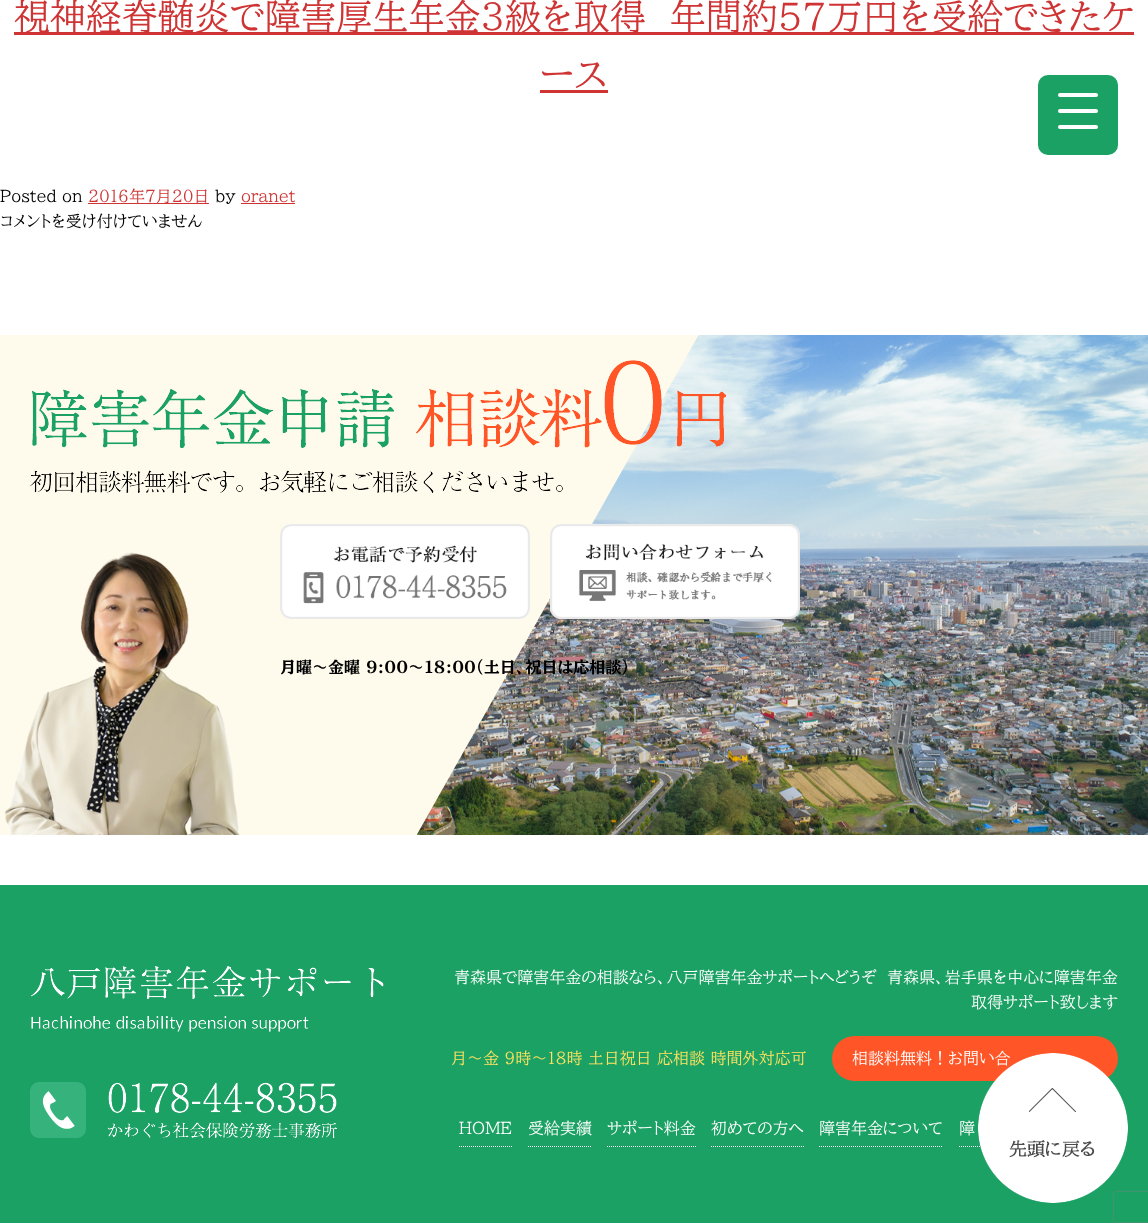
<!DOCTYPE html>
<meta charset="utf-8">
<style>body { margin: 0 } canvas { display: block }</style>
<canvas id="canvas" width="1148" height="1223"></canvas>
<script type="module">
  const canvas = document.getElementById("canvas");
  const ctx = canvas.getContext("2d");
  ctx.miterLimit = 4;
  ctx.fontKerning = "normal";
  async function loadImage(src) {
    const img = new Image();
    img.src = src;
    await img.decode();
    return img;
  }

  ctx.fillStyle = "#ffffff";
  ctx.fillRect(0, 0, 1148, 1223);
  ctx.fillStyle = "#cf3434";
  ctx.fillRect(14, 32, 1120, 3);
  ctx.font = "36px BIZ UDPMincho";
  ctx.fillText("視神経脊髄炎で障害厚生年金３級を取得　年間約５７万円を受給できたケ", 14, 30);
  ctx.fillText("ース", 540, 88);
  ctx.fillRect(540, 90, 68, 3);
  ctx.font = "16px BIZ UDPMincho";
  ctx.fillStyle = "#000000";
  ctx.fillText("Posted on", 0, 202);
  ctx.fillStyle = "#cf3434";
  ctx.fillRect(88, 203, 121, 1);
  ctx.fillText("2016年7月20日", 88, 202);
  ctx.fillStyle = "#000000";
  ctx.fillText("by", 215, 202);
  ctx.fillStyle = "#cf3434";
  ctx.fillText("oranet", 241, 202);
  ctx.fillRect(241, 203, 54, 1);
  ctx.fillStyle = "#000000";
  ctx.fillText("コメントを受け付けていません", 0, 227);
  ctx.fillStyle = "#1ca165";
  ctx.beginPath();
  ctx.roundRect(1038, 75, 80, 80, 10);
  ctx.fill();
  ctx.fillStyle = "#ffffff";
  ctx.beginPath();
  ctx.roundRect(1058, 93, 40, 4, 2);
  ctx.fill();
  ctx.beginPath();
  ctx.roundRect(1058, 109, 40, 4, 2);
  ctx.fill();
  ctx.beginPath();
  ctx.roundRect(1058, 125, 40, 4, 2);
  ctx.fill();
  ctx.fillStyle = "#fffbec";
  ctx.fillRect(0, 335, 699, 500);
  ctx.drawImage(await loadImage("img1.png"), 417, 335, 731, 500);
  ctx.drawImage(await loadImage("img2.png"), 30, 360, 697, 133);
  ctx.drawImage(await loadImage("img3.png"), 5, 552, 235, 283);
  ctx.drawImage(await loadImage("img4.png"), 280, 524, 250, 95);
  ctx.drawImage(await loadImage("img5.png"), 550, 524, 250, 95);
  ctx.font = "bold 16px BIZ UDPMincho";
  ctx.fillStyle = "#000000";
  ctx.fillText("月曜～金曜 9:00～18:00（土日、祝日は応相談）", 280, 673);
  ctx.fillStyle = "#1ca165";
  ctx.fillRect(0, 885, 1148, 338);
  ctx.drawImage(await loadImage("img6.png"), 31, 966, 353, 66);
  ctx.font = "16px BIZ UDPMincho";
  ctx.fillStyle = "#ffffff";
  ctx.fillText("青森県で障害年金の相談なら、八戸障害年金サポートへどうぞ　青森県、岩手県を中心に障害年金", 454, 983);
  ctx.fillText("取得サポート致します", 971, 1008);
  ctx.fillStyle = "#ffe35f";
  ctx.fillText("月～金 9時～18時 土日祝日 応相談 時間外対応可", 451, 1064);
  ctx.fillStyle = "#ff5527";
  ctx.beginPath();
  ctx.roundRect(832, 1036, 286, 45, 22.5);
  ctx.fill();
  ctx.fillStyle = "#ffffff";
  ctx.fillText("相談料無料！お問い合", 852, 1064);
  ctx.fillText("HOME", 459, 1134);
  ctx.beginPath();
  ctx.moveTo(459, 1146.5);
  ctx.lineTo(512, 1146.5);
  ctx.strokeStyle = "#ffffff";
  ctx.setLineDash([1, 1]);
  ctx.stroke();
  ctx.fillText("受給実績", 528, 1134);
  ctx.beginPath();
  ctx.moveTo(528, 1146.5);
  ctx.lineTo(592, 1146.5);
  ctx.stroke();
  ctx.fillText("サポート料金", 607, 1134);
  ctx.beginPath();
  ctx.moveTo(607, 1146.5);
  ctx.lineTo(696, 1146.5);
  ctx.stroke();
  ctx.fillText("初めての方へ", 711, 1134);
  ctx.beginPath();
  ctx.moveTo(711, 1146.5);
  ctx.lineTo(804, 1146.5);
  ctx.stroke();
  ctx.fillText("障害年金について", 819, 1134);
  ctx.beginPath();
  ctx.moveTo(819, 1146.5);
  ctx.lineTo(943, 1146.5);
  ctx.stroke();
  ctx.fillText("障", 959, 1134);
  ctx.beginPath();
  ctx.moveTo(959, 1146.5);
  ctx.lineTo(1023, 1146.5);
  ctx.stroke();
  ctx.drawImage(await loadImage("img7.png"), 30, 1082, 307, 57);
  ctx.save();
  ctx.beginPath();
  ctx.moveTo(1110, 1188);
  ctx.lineTo(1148, 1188);
  ctx.lineTo(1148, 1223);
  ctx.lineTo(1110, 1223);
  ctx.closePath();
  ctx.moveTo(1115, 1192);
  ctx.lineTo(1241, 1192);
  ctx.bezierCurveTo(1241.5, 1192, 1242, 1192.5, 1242, 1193);
  ctx.lineTo(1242, 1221);
  ctx.bezierCurveTo(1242, 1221.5, 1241.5, 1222, 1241, 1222);
  ctx.lineTo(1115, 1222);
  ctx.bezierCurveTo(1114.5, 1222, 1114, 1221.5, 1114, 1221);
  ctx.lineTo(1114, 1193);
  ctx.bezierCurveTo(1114, 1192.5, 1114.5, 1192, 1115, 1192);
  ctx.closePath();
  ctx.clip("evenodd");
  ctx.fillStyle = "#808080";
  ctx.filter = "blur(1px)";
  ctx.beginPath();
  ctx.roundRect(1114, 1192, 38, 30, 1);
  ctx.fill();
  ctx.filter = "none";
  ctx.restore();
  ctx.drawImage(await loadImage("img8.png"), 978, 1053, 150, 150);
</script>
